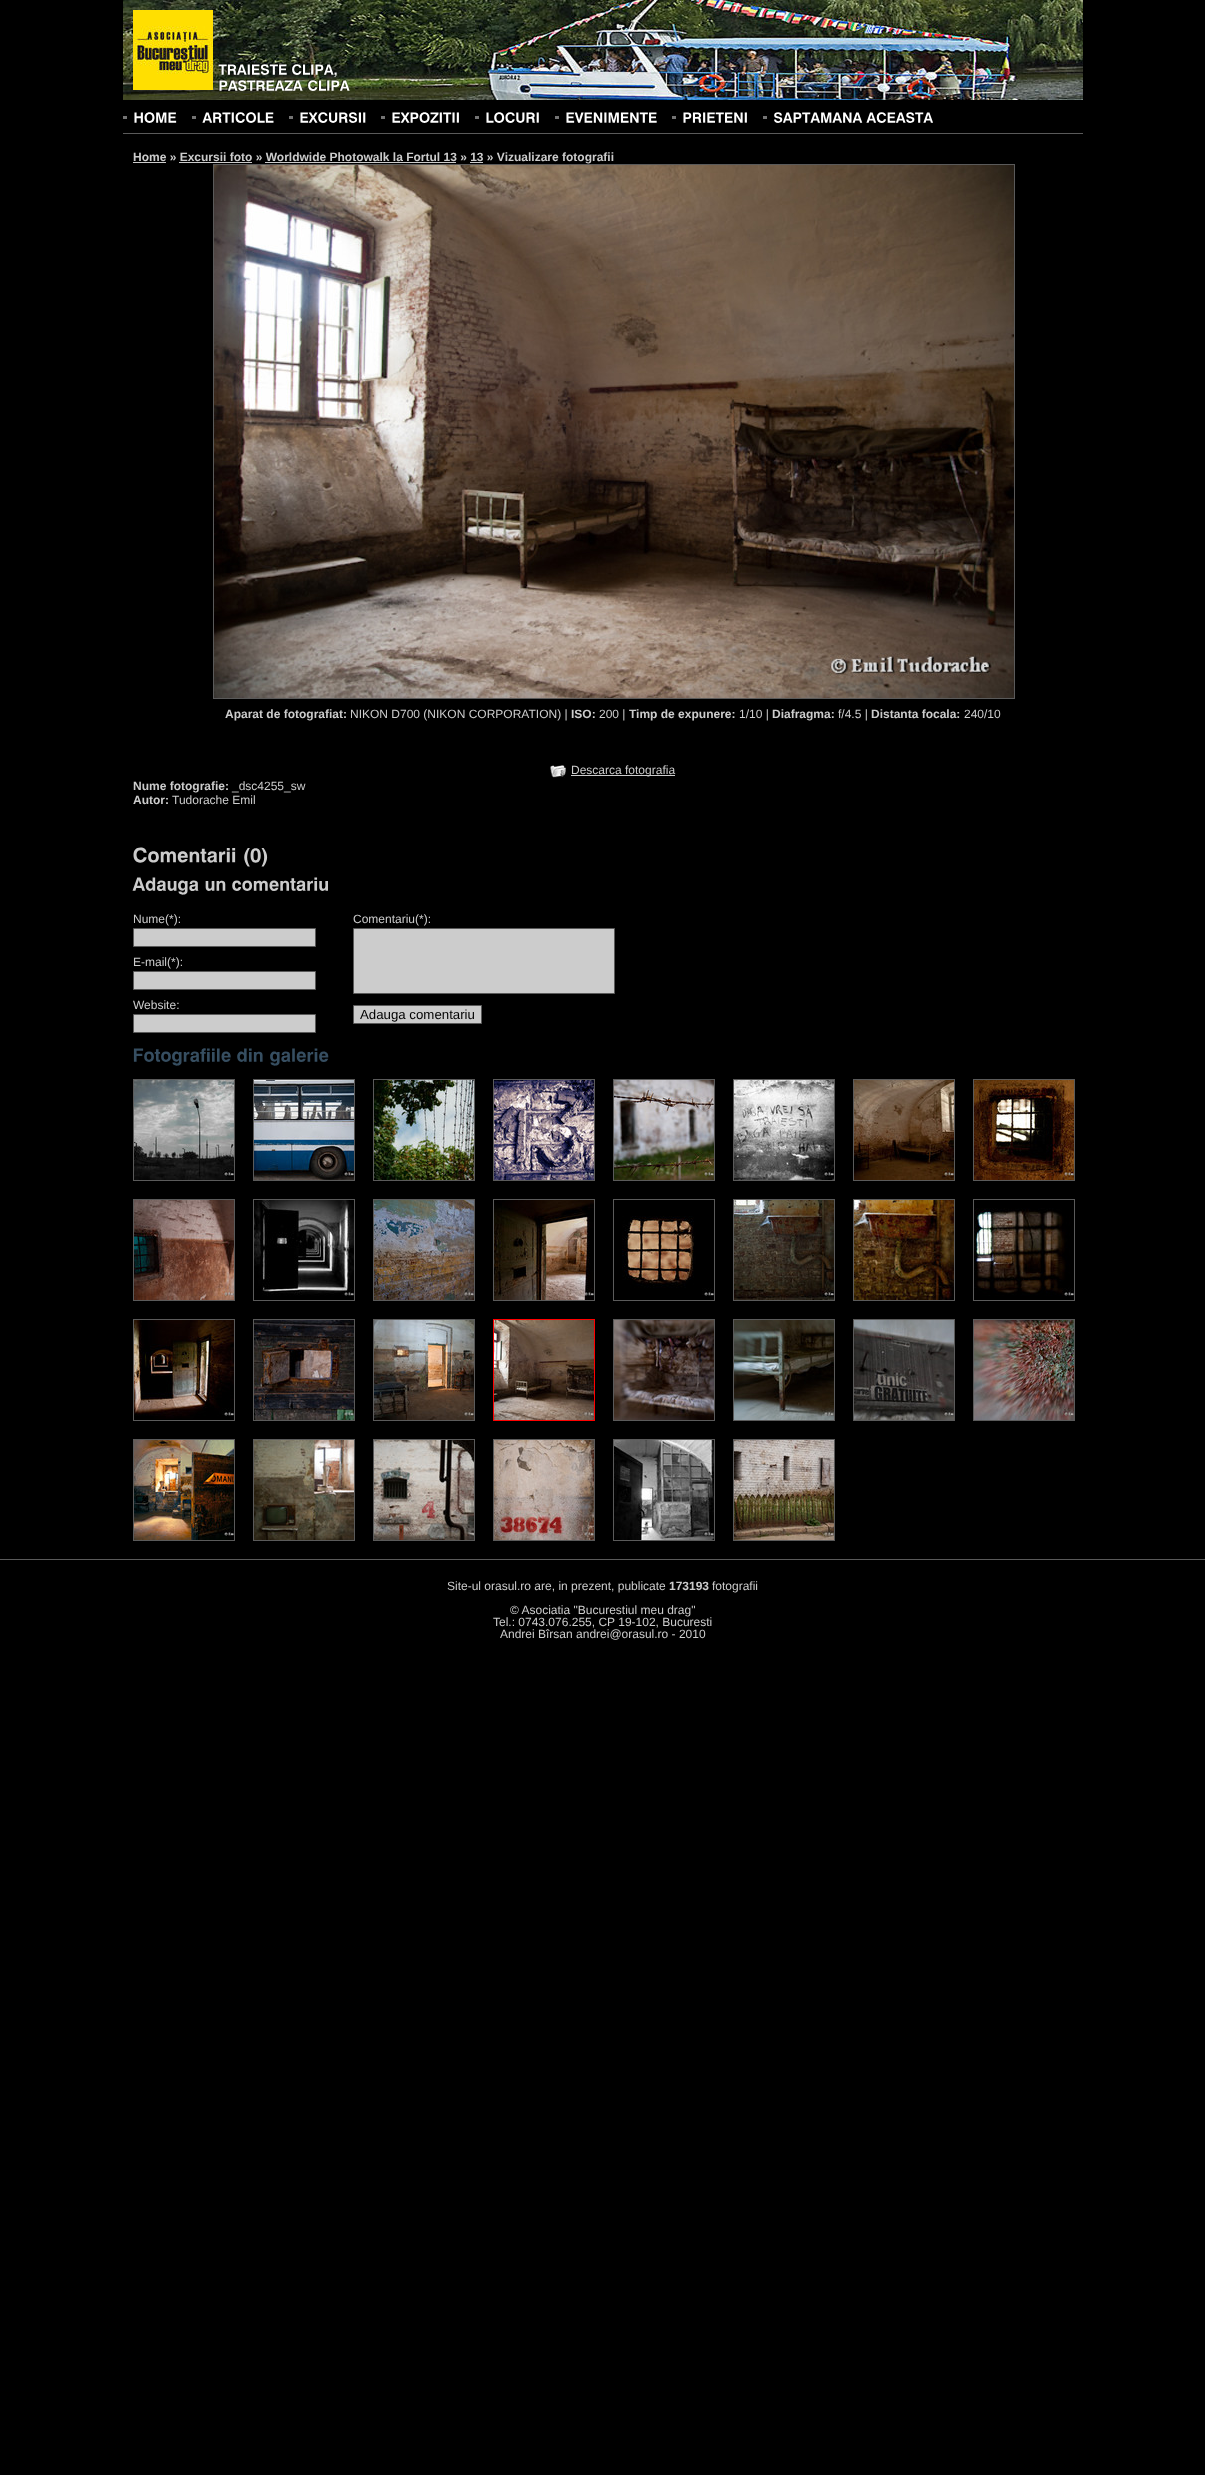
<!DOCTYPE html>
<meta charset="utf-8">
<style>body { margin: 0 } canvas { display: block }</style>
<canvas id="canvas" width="1205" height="2475"></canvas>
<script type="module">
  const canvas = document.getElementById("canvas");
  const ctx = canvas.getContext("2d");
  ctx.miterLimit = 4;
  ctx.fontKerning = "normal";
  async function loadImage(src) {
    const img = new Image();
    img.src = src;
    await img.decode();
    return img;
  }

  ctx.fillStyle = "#000000";
  ctx.fillRect(0, 0, 1205, 2475);
  ctx.drawImage(await loadImage("img1.png"), 123, 0, 960, 100);
  ctx.drawImage(await loadImage("img2.png"), 133, 10, 80, 80);
  ctx.drawImage(await loadImage("img3.png"), 217, 63, 70, 12);
  ctx.drawImage(await loadImage("img4.png"), 291, 63, 46, 14);
  ctx.drawImage(await loadImage("img5.png"), 218, 79, 85, 12);
  ctx.drawImage(await loadImage("img6.png"), 307, 79, 43, 12);
  ctx.fillStyle = "#5a5a5a";
  ctx.fillRect(123, 133, 960, 1);
  ctx.fillStyle = "#737373";
  ctx.fillRect(123, 116, 4, 3);
  ctx.drawImage(await loadImage("img7.png"), 134, 112, 43, 11);
  ctx.fillRect(192, 116, 4, 3);
  ctx.drawImage(await loadImage("img8.png"), 202, 112, 72, 11);
  ctx.fillRect(289, 116, 4, 3);
  ctx.drawImage(await loadImage("img9.png"), 300, 112, 66, 11);
  ctx.fillRect(381, 116, 4, 3);
  ctx.drawImage(await loadImage("img10.png"), 392, 112, 67, 11);
  ctx.fillRect(475, 116, 4, 3);
  ctx.drawImage(await loadImage("img11.png"), 486, 112, 53, 11);
  ctx.fillRect(555, 116, 4, 3);
  ctx.drawImage(await loadImage("img12.png"), 566, 112, 91, 11);
  ctx.fillRect(672, 116, 4, 3);
  ctx.drawImage(await loadImage("img13.png"), 683, 112, 64, 11);
  ctx.fillRect(763, 116, 4, 3);
  ctx.drawImage(await loadImage("img14.png"), 774, 112, 89, 11);
  ctx.drawImage(await loadImage("img15.png"), 866, 112, 67, 11);
  ctx.fillStyle = "#cccccc";
  ctx.fillRect(133, 162, 33, 1);
  ctx.font = "bold 12px Liberation Sans";
  ctx.fillText("Home » Excursii foto » Worldwide Photowalk la Fortul 13 » 13 » Vizualizare fotografii", 133, 161);
  ctx.fillRect(179, 162, 73, 1);
  ctx.fillRect(265, 162, 191, 1);
  ctx.fillRect(470, 162, 13, 1);
  ctx.strokeStyle = "#5a5a5a";
  ctx.strokeRect(213.5, 164.5, 801, 534);
  ctx.drawImage(await loadImage("img16.png"), 214, 165, 800, 533);
  ctx.fillText("Aparat de fotografiat:", 225, 718);
  ctx.font = "12px Liberation Sans";
  ctx.fillText("NIKON D700 (NIKON CORPORATION) |", 350, 718);
  ctx.font = "bold 12px Liberation Sans";
  ctx.fillText("ISO:", 571, 718);
  ctx.font = "12px Liberation Sans";
  ctx.fillText("200 |", 599, 718);
  ctx.font = "bold 12px Liberation Sans";
  ctx.fillText("Timp de expunere:", 629, 718);
  ctx.font = "12px Liberation Sans";
  ctx.fillText("1/10 |", 739, 718);
  ctx.font = "bold 12px Liberation Sans";
  ctx.fillText("Diafragma:", 772, 718);
  ctx.font = "12px Liberation Sans";
  ctx.fillText("f/4.5 |", 838, 718);
  ctx.font = "bold 12px Liberation Sans";
  ctx.fillText("Distanta focala:", 871, 718);
  ctx.font = "12px Liberation Sans";
  ctx.fillText("240/10", 964, 718);
  ctx.drawImage(await loadImage("img17.png"), 550, 765, 16, 13);
  ctx.fillRect(571, 775, 104, 1);
  ctx.fillText("Descarca fotografia", 571, 774);
  ctx.font = "bold 12px Liberation Sans";
  ctx.fillText("Nume fotografie:", 133, 790);
  ctx.font = "12px Liberation Sans";
  ctx.fillText("_dsc4255_sw", 232, 790);
  ctx.font = "bold 12px Liberation Sans";
  ctx.fillText("Autor:", 133, 804);
  ctx.font = "12px Liberation Sans";
  ctx.fillText("Tudorache Emil", 172, 804);
  ctx.drawImage(await loadImage("img18.png"), 133, 847, 103, 16);
  ctx.drawImage(await loadImage("img19.png"), 244, 848, 24, 19);
  ctx.drawImage(await loadImage("img20.png"), 132, 877, 67, 18);
  ctx.drawImage(await loadImage("img21.png"), 205, 880, 21, 11);
  ctx.drawImage(await loadImage("img22.png"), 232, 877, 96, 14);
  ctx.fillText("Nume(*):", 133, 923);
  ctx.beginPath();
  ctx.rect(133.5, 928.5, 182, 18);
  ctx.fill();
  ctx.stroke();
  ctx.fillText("E-mail(*):", 133, 966);
  ctx.beginPath();
  ctx.rect(133.5, 971.5, 182, 18);
  ctx.fill();
  ctx.stroke();
  ctx.fillText("Website:", 133, 1009);
  ctx.beginPath();
  ctx.rect(133.5, 1014.5, 182, 18);
  ctx.fill();
  ctx.stroke();
  ctx.fillText("Comentariu(*):", 353, 923);
  ctx.beginPath();
  ctx.rect(353.5, 928.5, 261, 65);
  ctx.fill();
  ctx.stroke();
  ctx.beginPath();
  ctx.rect(353.5, 1005.5, 128, 18);
  ctx.fill();
  ctx.stroke();
  ctx.font = "13.25px Liberation Sans";
  ctx.fillStyle = "#000000";
  ctx.fillText("Adauga comentariu", 360, 1019);
  ctx.drawImage(await loadImage("img23.png"), 133, 1048, 98, 18);
  ctx.drawImage(await loadImage("img24.png"), 237, 1048, 26, 14);
  ctx.drawImage(await loadImage("img25.png"), 270, 1048, 59, 18);
  ctx.strokeRect(133.5, 1079.5, 101, 101);
  ctx.drawImage(await loadImage("img26.png"), 134, 1080, 100, 100);
  ctx.strokeRect(253.5, 1079.5, 101, 101);
  ctx.drawImage(await loadImage("img27.png"), 254, 1080, 100, 100);
  ctx.strokeRect(373.5, 1079.5, 101, 101);
  ctx.drawImage(await loadImage("img28.png"), 374, 1080, 100, 100);
  ctx.strokeRect(493.5, 1079.5, 101, 101);
  ctx.drawImage(await loadImage("img29.png"), 494, 1080, 100, 100);
  ctx.strokeRect(613.5, 1079.5, 101, 101);
  ctx.drawImage(await loadImage("img30.png"), 614, 1080, 100, 100);
  ctx.strokeRect(733.5, 1079.5, 101, 101);
  ctx.drawImage(await loadImage("img31.png"), 734, 1080, 100, 100);
  ctx.strokeRect(853.5, 1079.5, 101, 101);
  ctx.drawImage(await loadImage("img32.png"), 854, 1080, 100, 100);
  ctx.strokeRect(973.5, 1079.5, 101, 101);
  ctx.drawImage(await loadImage("img33.png"), 974, 1080, 100, 100);
  ctx.strokeRect(133.5, 1199.5, 101, 101);
  ctx.drawImage(await loadImage("img34.png"), 134, 1200, 100, 100);
  ctx.strokeRect(253.5, 1199.5, 101, 101);
  ctx.drawImage(await loadImage("img35.png"), 254, 1200, 100, 96);
  ctx.strokeRect(373.5, 1199.5, 101, 101);
  ctx.drawImage(await loadImage("img36.png"), 374, 1200, 100, 100);
  ctx.strokeRect(493.5, 1199.5, 101, 101);
  ctx.drawImage(await loadImage("img37.png"), 494, 1200, 100, 100);
  ctx.strokeRect(613.5, 1199.5, 101, 101);
  ctx.drawImage(await loadImage("img38.png"), 622, 1216, 92, 80);
  ctx.strokeRect(733.5, 1199.5, 101, 101);
  ctx.drawImage(await loadImage("img39.png"), 734, 1200, 100, 100);
  ctx.strokeRect(853.5, 1199.5, 101, 101);
  ctx.drawImage(await loadImage("img40.png"), 854, 1200, 100, 100);
  ctx.strokeRect(973.5, 1199.5, 101, 101);
  ctx.drawImage(await loadImage("img41.png"), 974, 1208, 100, 88);
  ctx.strokeRect(133.5, 1319.5, 101, 101);
  ctx.drawImage(await loadImage("img42.png"), 134, 1320, 100, 99);
  ctx.strokeRect(253.5, 1319.5, 101, 101);
  ctx.drawImage(await loadImage("img43.png"), 254, 1320, 100, 100);
  ctx.strokeRect(373.5, 1319.5, 101, 101);
  ctx.drawImage(await loadImage("img44.png"), 374, 1320, 100, 100);
  ctx.strokeStyle = "#ff0000";
  ctx.strokeRect(493.5, 1319.5, 101, 101);
  ctx.drawImage(await loadImage("img45.png"), 494, 1320, 100, 100);
  ctx.strokeStyle = "#5a5a5a";
  ctx.strokeRect(613.5, 1319.5, 101, 101);
  ctx.drawImage(await loadImage("img46.png"), 614, 1320, 100, 100);
  ctx.strokeRect(733.5, 1319.5, 101, 101);
  ctx.drawImage(await loadImage("img47.png"), 734, 1320, 100, 100);
  ctx.strokeRect(853.5, 1319.5, 101, 101);
  ctx.drawImage(await loadImage("img48.png"), 854, 1320, 100, 100);
  ctx.strokeRect(973.5, 1319.5, 101, 101);
  ctx.drawImage(await loadImage("img49.png"), 974, 1320, 100, 100);
  ctx.strokeRect(133.5, 1439.5, 101, 101);
  ctx.drawImage(await loadImage("img50.png"), 134, 1440, 100, 100);
  ctx.strokeRect(253.5, 1439.5, 101, 101);
  ctx.drawImage(await loadImage("img51.png"), 254, 1440, 100, 100);
  ctx.strokeRect(373.5, 1439.5, 101, 101);
  ctx.drawImage(await loadImage("img52.png"), 374, 1440, 100, 100);
  ctx.strokeRect(493.5, 1439.5, 101, 101);
  ctx.drawImage(await loadImage("img53.png"), 494, 1440, 100, 100);
  ctx.strokeRect(613.5, 1439.5, 101, 101);
  ctx.drawImage(await loadImage("img54.png"), 614, 1440, 100, 100);
  ctx.strokeRect(733.5, 1439.5, 101, 101);
  ctx.drawImage(await loadImage("img55.png"), 734, 1440, 100, 100);
  ctx.fillStyle = "#5a5a5a";
  ctx.fillRect(0, 1559, 1205, 1);
  ctx.font = "12px Liberation Sans";
  ctx.fillStyle = "#cccccc";
  ctx.fillText("Site-ul orasul.ro are, in prezent, publicate", 447, 1590);
  ctx.font = "bold 12px Liberation Sans";
  ctx.fillText("173193", 669, 1590);
  ctx.font = "12px Liberation Sans";
  ctx.fillText("fotografii", 712, 1590);
  ctx.fillText("© Asociatia \"Bucurestiul meu drag\"", 510, 1614);
  ctx.fillText("Tel.: 0743.076.255, CP 19-102, Bucuresti", 493, 1626);
  ctx.fillText("Andrei Bîrsan andrei@orasul.ro - 2010", 500, 1638);
</script>
